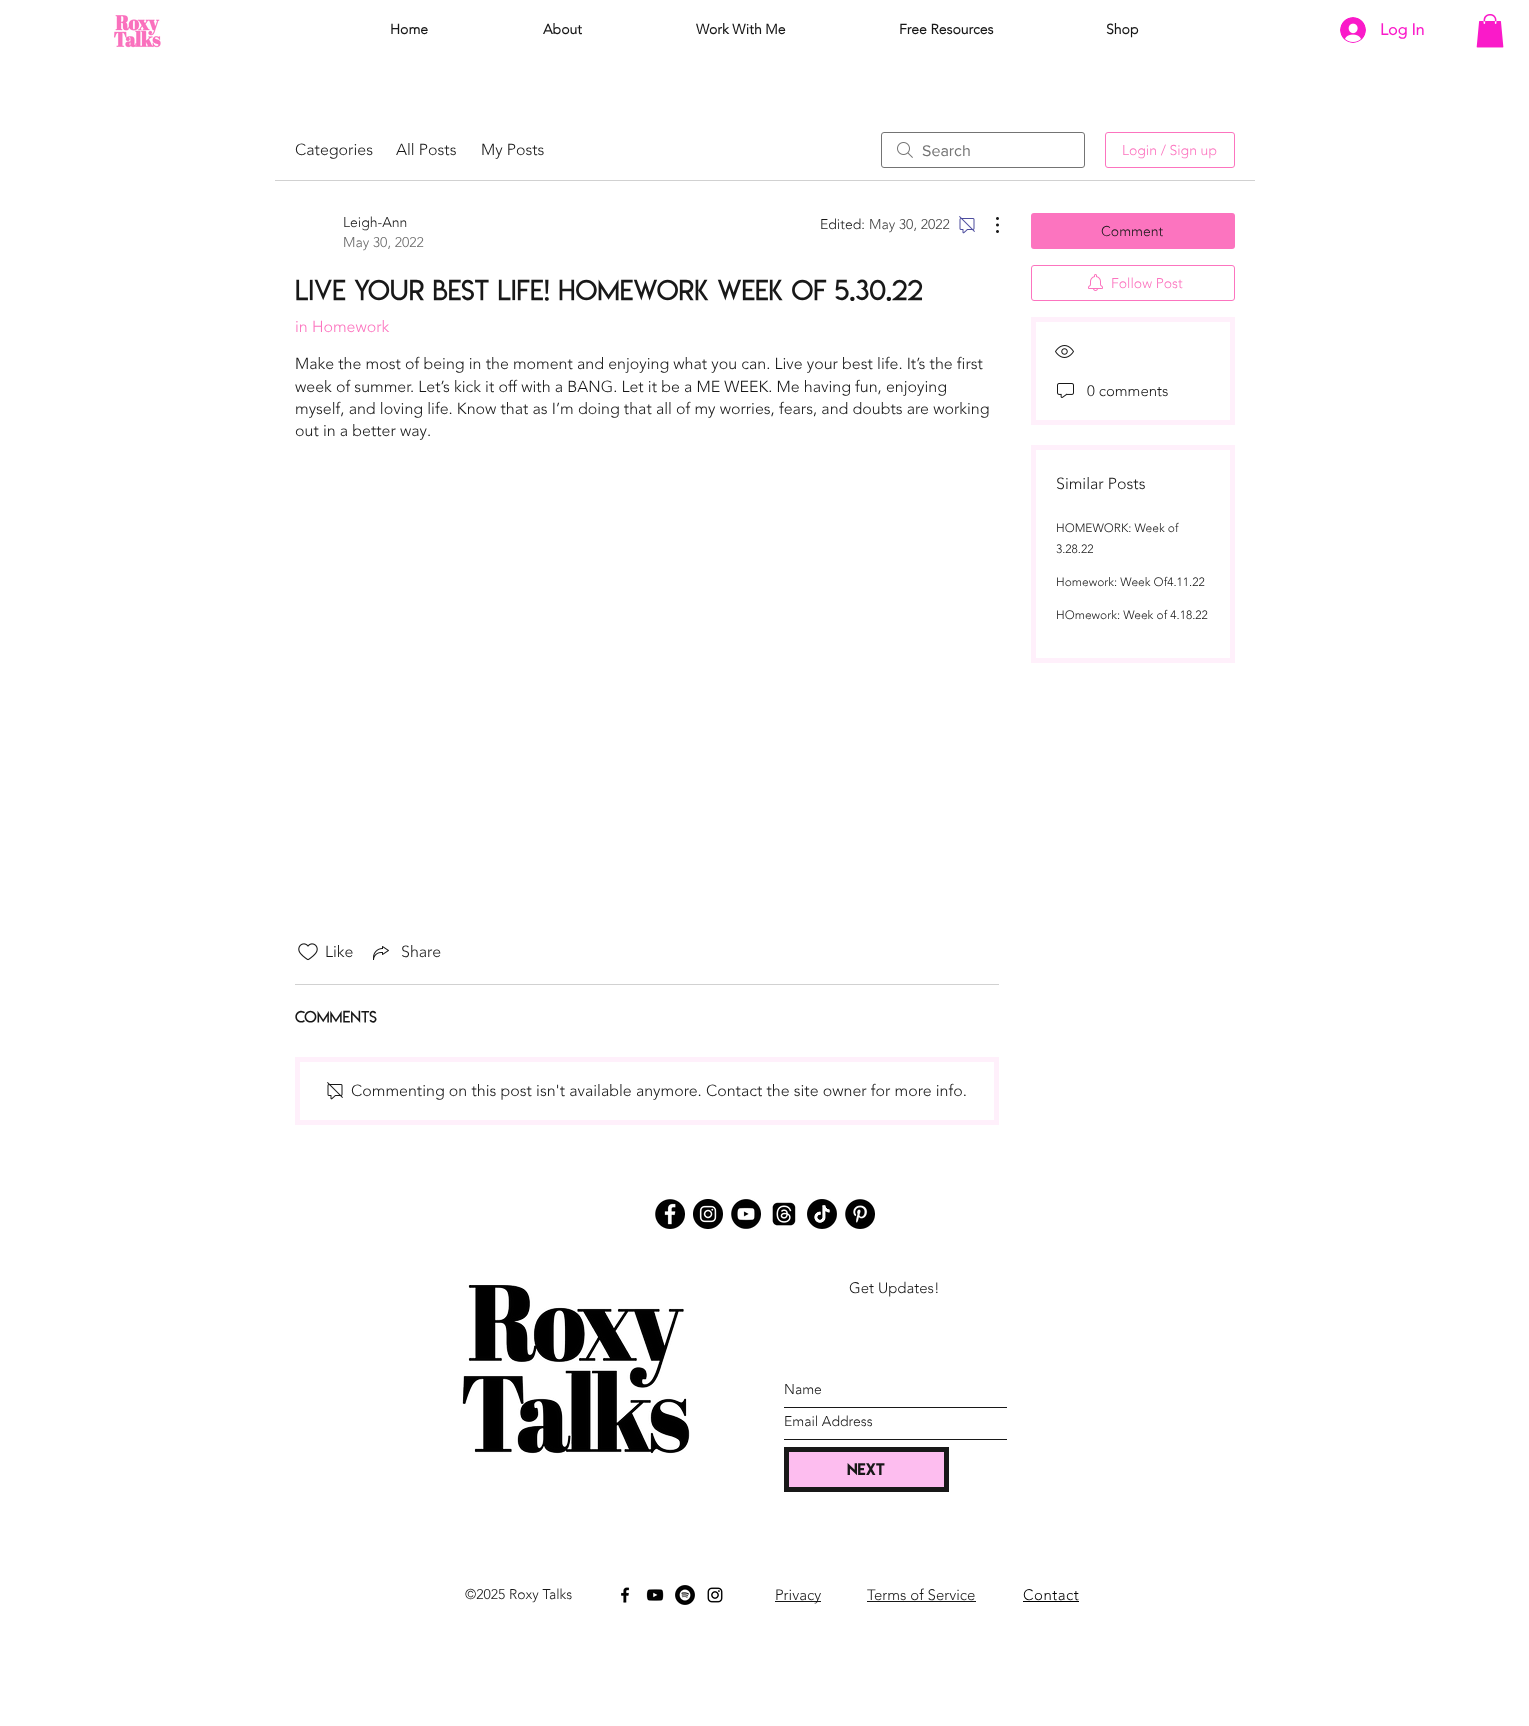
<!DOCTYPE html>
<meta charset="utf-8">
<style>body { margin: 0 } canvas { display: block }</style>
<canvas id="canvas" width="1529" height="1726"></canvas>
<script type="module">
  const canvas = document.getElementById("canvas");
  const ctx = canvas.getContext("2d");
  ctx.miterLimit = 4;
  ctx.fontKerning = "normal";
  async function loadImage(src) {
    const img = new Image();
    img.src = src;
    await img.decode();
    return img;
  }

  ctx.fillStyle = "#ffffff";
  ctx.fillRect(0, 0, 1529, 1726);
  ctx.drawImage(await loadImage("img1.png"), 114, 15, 47, 33);
  ctx.font = "bold 14px 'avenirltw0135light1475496'";
  ctx.fillStyle = "#181818";
  ctx.fillText("Home", 390, 34);
  ctx.fillText("About", 543, 34);
  ctx.fillText("Work With Me", 696, 34);
  ctx.fillText("Free Resources", 899, 34);
  ctx.fillText("Shop", 1106, 34);
  ctx.drawImage(await loadImage("img2.png"), 1340, 17, 26, 26);
  ctx.font = "bold 16px 'avenirltw0135light1475496'";
  ctx.fillStyle = "#fa1ac9";
  ctx.fillText("Log In", 1380, 35);
  ctx.drawImage(await loadImage("img3.png"), 1476, 14, 28, 34);
  ctx.fillStyle = "#d1d1d1";
  ctx.fillRect(275, 180, 980, 1);
  ctx.font = "300 16px 'avenirltw0135light1475496'";
  ctx.fillStyle = "#181818";
  ctx.fillText("Categories", 295, 155);
  ctx.fillText("All Posts", 396, 155);
  ctx.fillText("My Posts", 481, 155);
  ctx.drawImage(await loadImage("img4.png"), 897, 142, 16, 16);
  ctx.beginPath();
  ctx.roundRect(881.5, 132.5, 203, 35, 2.5);
  ctx.strokeStyle = "#747474";
  ctx.stroke();
  ctx.font = "16px 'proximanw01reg'";
  ctx.fillStyle = "#747474";
  ctx.fillText("Search", 922, 156);
  ctx.beginPath();
  ctx.roundRect(1105.5, 132.5, 129, 35, 2.5);
  ctx.strokeStyle = "#fc74bf";
  ctx.stroke();
  ctx.font = "300 14px 'avenirltw0135light1475496'";
  ctx.fillStyle = "#fc74bf";
  ctx.fillText("Login / Sign up", 1122, 155);
  ctx.fillStyle = "#181818";
  ctx.fillText("Leigh-Ann", 343, 227);
  ctx.fillStyle = "#6b6b6b";
  ctx.fillText("May 30, 2022", 343, 247);
  ctx.fillStyle = "#181818";
  ctx.fillText("Edited:", 820, 229);
  ctx.fillStyle = "#464646";
  ctx.fillText("May 30, 2022", 869, 229);
  ctx.drawImage(await loadImage("img5.png"), 959, 216, 16, 18);
  ctx.drawImage(await loadImage("img6.png"), 996, 217, 3, 16);
  ctx.font = "300 28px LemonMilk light";
  ctx.fillStyle = "#181818";
  ctx.fillText("Live Your Best Life! Homework Week Of 5.30.22", 295, 301);
  ctx.font = "300 16px 'avenirltw0135light1475496'";
  ctx.fillStyle = "#fc74bf";
  ctx.fillText("in Homework", 295, 332);
  ctx.fillStyle = "#181818";
  ctx.fillText("Make the most of being in the moment and enjoying what you can. Live your best life. It’s the first", 295, 369);
  ctx.fillText("week of summer. Let’s kick it off with a BANG. Let it be a ME WEEK. Me having fun, enjoying", 295, 392);
  ctx.fillText("myself, and loving life. Know that as I’m doing that all of my worries, fears, and doubts are working", 295, 414);
  ctx.fillText("out in a better way.", 295, 436);
  ctx.drawImage(await loadImage("img7.png"), 298, 943, 20, 18);
  ctx.fillText("Like", 325, 957);
  ctx.drawImage(await loadImage("img8.png"), 373, 946, 16, 14);
  ctx.fillText("Share", 401, 957);
  ctx.fillStyle = "#d1d1d1";
  ctx.fillRect(295, 984, 704, 1);
  ctx.font = "300 16px LemonMilk light";
  ctx.fillStyle = "#181818";
  ctx.fillText("Comments", 295, 1023);
  ctx.strokeStyle = "#fff0fb";
  ctx.lineWidth = 5;
  ctx.strokeRect(297.5, 1059.5, 699, 63);
  ctx.drawImage(await loadImage("img9.png"), 327, 1082, 16, 18);
  ctx.font = "300 16px 'avenirltw0135light1475496'";
  ctx.fillText("Commenting on this post isn't available anymore. Contact the site owner for more info.", 351, 1096);
  ctx.fillStyle = "#fc74bf";
  ctx.beginPath();
  ctx.roundRect(1031, 213, 204, 36, 3);
  ctx.fill();
  ctx.font = "300 14px 'avenirltw0135light1475496'";
  ctx.fillStyle = "#181818";
  ctx.fillText("Comment", 1101, 236);
  ctx.beginPath();
  ctx.roundRect(1031.5, 265.5, 203, 35, 2.5);
  ctx.strokeStyle = "#fc74bf";
  ctx.lineWidth = 1;
  ctx.stroke();
  ctx.drawImage(await loadImage("img10.png"), 1088, 274, 15, 17);
  ctx.fillStyle = "#fc74bf";
  ctx.fillText("Follow Post", 1111, 288);
  ctx.strokeStyle = "#fff0fb";
  ctx.lineWidth = 5;
  ctx.strokeRect(1033.5, 319.5, 199, 103);
  ctx.drawImage(await loadImage("img11.png"), 1055, 345, 19, 13);
  ctx.drawImage(await loadImage("img12.png"), 1057, 383, 17, 15);
  ctx.font = "300 15px 'avenirltw0135light1475496'";
  ctx.fillStyle = "#181818";
  ctx.fillText("0 comments", 1087, 396);
  ctx.strokeRect(1033.5, 447.5, 199, 213);
  ctx.font = "300 16px 'avenirltw0135light1475496'";
  ctx.fillText("Similar Posts", 1056, 489);
  ctx.font = "300 12px 'avenirltw0135light1475496'";
  ctx.fillText("HOMEWORK: Week of", 1056, 532);
  ctx.fillText("3.28.22", 1056, 553);
  ctx.fillText("Homework: Week Of4.11.22", 1056, 586);
  ctx.fillText("HOmework: Week of 4.18.22", 1056, 619);
  ctx.drawImage(await loadImage("img13.png"), 655, 1199, 30, 30);
  ctx.drawImage(await loadImage("img14.png"), 693, 1199, 30, 30);
  ctx.drawImage(await loadImage("img15.png"), 731, 1199, 30, 30);
  ctx.drawImage(await loadImage("img16.png"), 772, 1202, 24, 24);
  ctx.drawImage(await loadImage("img17.png"), 807, 1199, 30, 30);
  ctx.drawImage(await loadImage("img18.png"), 845, 1199, 30, 30);
  ctx.drawImage(await loadImage("img19.png"), 462, 1285, 228, 169);
  ctx.font = "300 15px 'avenirltw0135light1475496'";
  ctx.fillText("Get Updates!", 849, 1293);
  ctx.fillRect(784, 1407, 223, 1);
  ctx.font = "300 14px 'avenirltw0135light1475496'";
  ctx.fillText("Name", 784, 1394);
  ctx.fillRect(784, 1439, 223, 1);
  ctx.fillText("Email Address", 784, 1426);
  ctx.fillStyle = "#fdbdef";
  ctx.beginPath();
  ctx.rect(786.5, 1449.5, 160, 40);
  ctx.fill();
  ctx.strokeStyle = "#181818";
  ctx.stroke();
  ctx.font = "15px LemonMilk";
  ctx.fillStyle = "#181818";
  ctx.fillText("Next", 847, 1475);
  ctx.font = "300 14px 'avenirltw0135light1475496'";
  ctx.fillText("©2025 Roxy Talks", 465, 1599);
  ctx.drawImage(await loadImage("img20.png"), 621, 1587, 9, 16);
  ctx.drawImage(await loadImage("img21.png"), 646, 1589, 18, 12);
  ctx.drawImage(await loadImage("img22.png"), 675, 1585, 20, 20);
  ctx.drawImage(await loadImage("img23.png"), 707, 1587, 16, 16);
  ctx.fillRect(775, 1601, 46, 1);
  ctx.font = "300 15px 'avenirltw0135light1475496'";
  ctx.fillText("Privacy", 775, 1600);
  ctx.fillText("Terms of Service", 867, 1600);
  ctx.fillRect(867, 1601, 109, 1);
  ctx.letterSpacing = "0.5px";
  ctx.fillStyle = "#000000";
  ctx.fillText("Contact", 1023, 1600);
  ctx.fillRect(1023, 1601, 56, 1);
</script>
